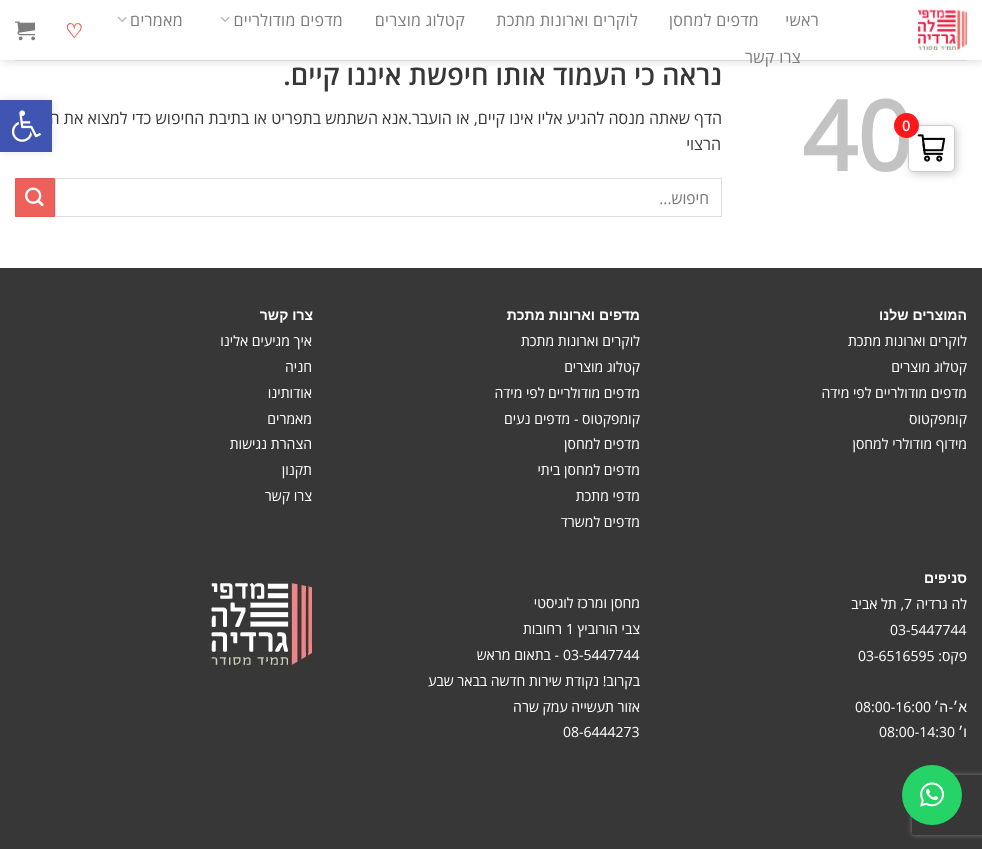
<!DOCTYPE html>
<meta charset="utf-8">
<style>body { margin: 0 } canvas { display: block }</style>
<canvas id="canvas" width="982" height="849"></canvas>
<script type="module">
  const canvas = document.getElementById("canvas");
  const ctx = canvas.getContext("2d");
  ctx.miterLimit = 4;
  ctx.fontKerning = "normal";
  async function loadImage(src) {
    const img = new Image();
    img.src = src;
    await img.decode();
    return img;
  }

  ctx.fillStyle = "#ffffff";
  ctx.fillRect(0, 0, 982, 849);
  ctx.save();
  ctx.beginPath();
  ctx.rect(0, 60, 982, 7);
  ctx.clip();
  ctx.fillStyle = "rgba(0, 0, 0, 0.15)";
  ctx.filter = "blur(5px)";
  ctx.beginPath();
  ctx.rect(1, 1, 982, 60);
  ctx.fill();
  ctx.filter = "none";
  ctx.restore();
  ctx.drawImage(await loadImage("img1.png"), 918, 9, 49, 42);
  ctx.letterSpacing = "0.3px";
  ctx.direction = "rtl";
  ctx.font = "16px Open Sans";
  ctx.fillStyle = "#7d7d7d";
  ctx.fillText("ראשי", 819, 26);
  ctx.fillText("מדפים למחסן", 759, 26);
  ctx.fillText("לוקרים וארונות מתכת", 638, 26);
  ctx.fillText("קטלוג מוצרים", 465, 26);
  ctx.fillText("מדפים מודולריים", 343, 26);
  ctx.drawImage(await loadImage("img2.png"), 220, 16, 10, 6);
  ctx.fillText("מאמרים", 183, 26);
  ctx.drawImage(await loadImage("img2.png"), 117, 16, 10, 6);
  ctx.fillText("צרו קשר", 801, 63);
  ctx.letterSpacing = "1px";
  ctx.direction = "ltr";
  ctx.font = "bold 20px DejaVu Sans";
  ctx.fillStyle = "#ee615a";
  ctx.fillText("♡", 65, 38);
  ctx.drawImage(await loadImage("img3.png"), 15, 21, 20, 20);
  ctx.fillStyle = "rgba(55, 55, 55, 0.1)";
  ctx.fillRect(15, 60, 952, 1);
  ctx.letterSpacing = "0px";
  ctx.font = "bold 96px Open Sans";
  ctx.fillStyle = "#c3c3c3";
  ctx.fillText("40", 802, 171);
  ctx.direction = "rtl";
  ctx.font = "600 27.25px Open Sans";
  ctx.fillStyle = "#373737";
  ctx.fillText("נראה כי העמוד אותו חיפשת איננו קיים.", 722, 85);
  ctx.font = "16px Open Sans";
  ctx.fillText("הדף שאתה מנסה להגיע אליו אינו קיים, או הועבר.אנא השתמש בתפריט או בתיבת החיפוש כדי למצוא את העמוד", 722, 124);
  ctx.fillText("הרצוי", 721, 150);
  ctx.strokeStyle = "#dddddd";
  ctx.strokeRect(55.5, 178.5, 666, 38);
  ctx.font = "15.5px Open Sans";
  ctx.fillStyle = "#757575";
  ctx.fillText("חיפוש...", 709, 204);
  ctx.fillStyle = "#ee615a";
  ctx.beginPath();
  ctx.rect(15.5, 178.5, 39, 38);
  ctx.fill();
  ctx.strokeStyle = "#e25c56";
  ctx.stroke();
  ctx.drawImage(await loadImage("img4.png"), 25, 187, 19, 20);
  ctx.fillStyle = "#373737";
  ctx.fillRect(0, 268, 982, 581);
  ctx.font = "bold 14px Liberation Sans";
  ctx.fillStyle = "#ffffff";
  ctx.fillText("המוצרים שלנו", 967, 320);
  ctx.font = "14px Open Sans";
  ctx.fillText("לוקרים וארונות מתכת", 967, 346);
  ctx.fillText("קטלוג מוצרים", 967, 372);
  ctx.fillText("מדפים מודולריים לפי מידה", 967, 398);
  ctx.fillText("קומפקטוס", 967, 424);
  ctx.fillText("מידוף מודולרי למחסן", 967, 449);
  ctx.font = "bold 14px Liberation Sans";
  ctx.fillText("מדפים וארונות מתכת", 640, 320);
  ctx.font = "14px Open Sans";
  ctx.fillText("לוקרים וארונות מתכת", 640, 346);
  ctx.fillText("קטלוג מוצרים", 640, 372);
  ctx.fillText("מדפים מודולריים לפי מידה", 640, 398);
  ctx.fillText("קומפקטוס - מדפים נעים", 640, 424);
  ctx.fillText("מדפים למחסן", 640, 449);
  ctx.fillText("מדפים למחסן ביתי", 640, 475);
  ctx.fillText("מדפי מתכת", 640, 501);
  ctx.fillText("מדפים למשרד", 640, 527);
  ctx.font = "bold 14px Liberation Sans";
  ctx.fillText("צרו קשר", 313, 320);
  ctx.font = "14px Open Sans";
  ctx.fillText("איך מגיעים אלינו", 312, 346);
  ctx.fillText("חניה", 312, 372);
  ctx.fillText("אודותינו", 312, 398);
  ctx.fillText("מאמרים", 312, 424);
  ctx.fillText("הצהרת נגישות", 312, 449);
  ctx.fillText("תקנון", 312, 475);
  ctx.fillText("צרו קשר", 312, 501);
  ctx.font = "bold 14px Liberation Sans";
  ctx.fillText("סניפים", 967, 583);
  ctx.font = "14px Open Sans";
  ctx.fillText("לה גרדיה", 967, 609);
  ctx.direction = "ltr";
  ctx.fillText("7", 904, 609);
  ctx.direction = "rtl";
  ctx.fillText(", תל אביב", 904, 609);
  ctx.direction = "ltr";
  ctx.fillText("03-5447744", 890, 635);
  ctx.direction = "rtl";
  ctx.fillText("פקס:", 967, 661);
  ctx.direction = "ltr";
  ctx.fillText("03-6516595", 858, 661);
  ctx.direction = "rtl";
  ctx.font = "14px Liberation Sans";
  ctx.fillText("א׳", 967, 712);
  ctx.font = "14px Open Sans";
  ctx.fillText("-", 953, 712);
  ctx.font = "14px Liberation Sans";
  ctx.fillText("ה׳", 948, 712);
  ctx.direction = "ltr";
  ctx.font = "14px Open Sans";
  ctx.fillText("08:00-16:00", 855, 712);
  ctx.direction = "rtl";
  ctx.font = "14px Liberation Sans";
  ctx.fillText("ו׳", 967, 737);
  ctx.direction = "ltr";
  ctx.font = "14px Open Sans";
  ctx.fillText("08:00-14:30", 879, 737);
  ctx.direction = "rtl";
  ctx.fillText("מחסן ומרכז לוגיסטי", 640, 608);
  ctx.fillText("צבי הורוביץ", 640, 634);
  ctx.direction = "ltr";
  ctx.fillText("1", 566, 634);
  ctx.direction = "rtl";
  ctx.fillText("רחובות", 562, 634);
  ctx.direction = "ltr";
  ctx.fillText("03-5447744", 563, 660);
  ctx.direction = "rtl";
  ctx.fillText("- בתאום מראש", 559, 660);
  ctx.fillText("בקרוב! נקודת שירות חדשה בבאר שבע", 640, 686);
  ctx.fillText("אזור תעשייה עמק שרה", 640, 712);
  ctx.direction = "ltr";
  ctx.fillText("08-6444273", 563, 737);
  ctx.drawImage(await loadImage("img5.png"), 211, 583, 101, 83);
  ctx.fillStyle = "#cccccc";
  ctx.filter = "blur(4px)";
  ctx.beginPath();
  ctx.roundRect(910, 127, 47, 47, 5);
  ctx.fill();
  ctx.filter = "none";
  ctx.fillStyle = "#ffffff";
  ctx.beginPath();
  ctx.roundRect(908.5, 125.5, 46, 46, 4.5);
  ctx.fill();
  ctx.strokeStyle = "#cccccc";
  ctx.stroke();
  ctx.drawImage(await loadImage("img6.png"), 917, 134, 29, 28);
  ctx.fillStyle = "#ff171a";
  ctx.beginPath();
  ctx.arc(906.5, 125.5, 12.5, 0, Math.PI * 2);
  ctx.fill();
  ctx.font = "bold 14px Open Sans";
  ctx.fillStyle = "#ffffff";
  ctx.fillText("0", 902, 131);
  ctx.fillStyle = "rgba(0, 0, 0, 0.1)";
  ctx.filter = "blur(5px)";
  ctx.beginPath();
  ctx.rect(0, 100, 52, 52);
  ctx.fill();
  ctx.filter = "none";
  ctx.fillStyle = "#4054b2";
  ctx.fillRect(0, 100, 52, 52);
  ctx.drawImage(await loadImage("img7.png"), 11, 110, 30, 32);
  ctx.save();
  ctx.beginPath();
  ctx.moveTo(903, 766);
  ctx.lineTo(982, 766);
  ctx.lineTo(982, 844);
  ctx.lineTo(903, 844);
  ctx.closePath();
  ctx.moveTo(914, 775);
  ctx.lineTo(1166, 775);
  ctx.bezierCurveTo(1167, 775, 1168, 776, 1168, 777);
  ctx.lineTo(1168, 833);
  ctx.bezierCurveTo(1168, 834, 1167, 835, 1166, 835);
  ctx.lineTo(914, 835);
  ctx.bezierCurveTo(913, 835, 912, 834, 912, 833);
  ctx.lineTo(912, 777);
  ctx.bezierCurveTo(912, 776, 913, 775, 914, 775);
  ctx.closePath();
  ctx.clip("evenodd");
  ctx.fillStyle = "#808080";
  ctx.filter = "blur(2.5px)";
  ctx.beginPath();
  ctx.roundRect(912, 775, 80, 60, 2);
  ctx.fill();
  ctx.filter = "none";
  ctx.restore();
  ctx.fillStyle = "#25d366";
  ctx.beginPath();
  ctx.arc(932, 795, 30, 0, Math.PI * 2);
  ctx.fill();
  ctx.drawImage(await loadImage("img8.png"), 920, 782, 24, 25);
</script>
